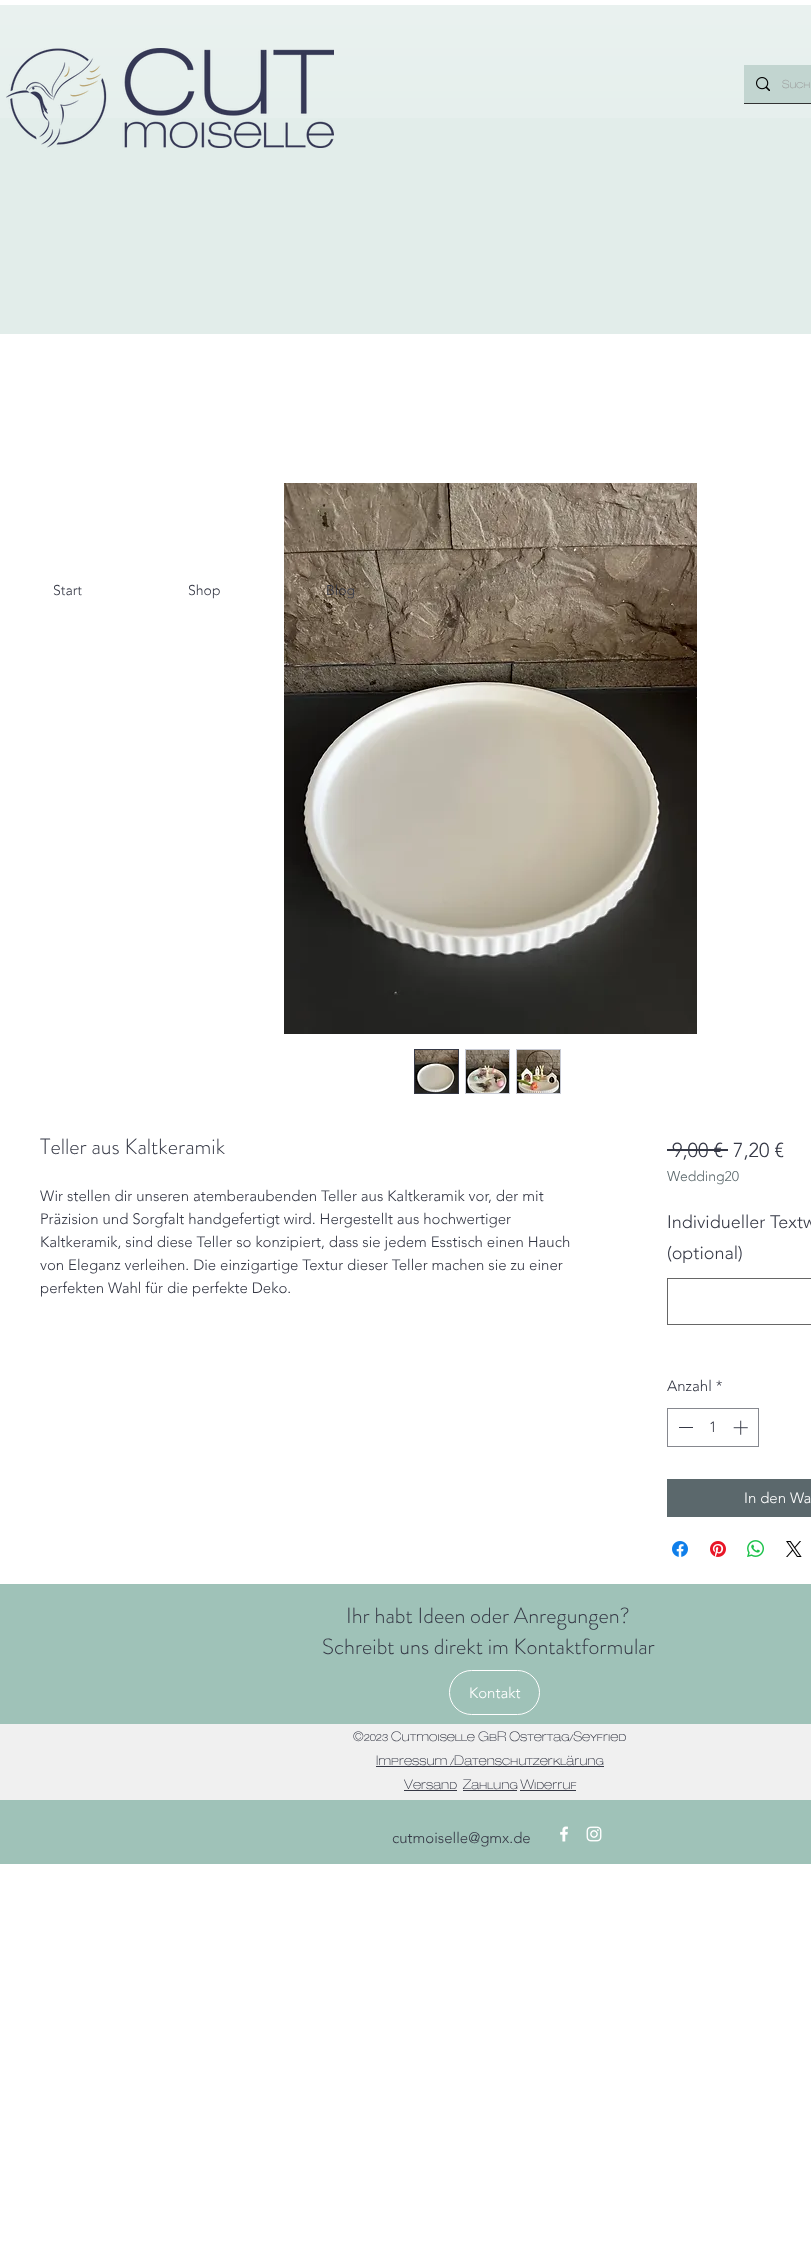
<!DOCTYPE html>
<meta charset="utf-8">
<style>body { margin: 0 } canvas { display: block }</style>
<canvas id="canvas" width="811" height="2260"></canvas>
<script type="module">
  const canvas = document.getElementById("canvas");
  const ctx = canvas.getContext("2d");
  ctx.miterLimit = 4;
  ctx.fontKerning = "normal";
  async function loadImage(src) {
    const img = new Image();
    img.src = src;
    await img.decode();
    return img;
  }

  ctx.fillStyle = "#ffffff";
  ctx.fillRect(0, 0, 811, 2260);
  ctx.fillStyle = "#e2edea";
  ctx.fillRect(0, 5, 811, 329);
  ctx.drawImage(await loadImage("img1.png"), 0, 5, 811, 113);
  ctx.drawImage(await loadImage("img2.png"), 6, 48, 328, 100);
  ctx.fillStyle = "#323232";
  ctx.fillRect(744, 103, 67, 1);
  ctx.fillStyle = "#c2d5d0";
  ctx.fillRect(744, 65, 67, 38);
  ctx.drawImage(await loadImage("img3.png"), 756, 77, 14, 14);
  ctx.font = "16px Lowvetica";
  ctx.fillStyle = "#999999";
  ctx.fillText("Such", 782, 88);
  ctx.font = "300 14px 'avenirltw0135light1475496'";
  ctx.fillStyle = "#353845";
  ctx.fillText("Start", 53, 595);
  ctx.fillText("Shop", 188, 595);
  ctx.drawImage(await loadImage("img4.png"), 284, 483, 413, 551);
  ctx.fillText("Blog", 326, 595);
  ctx.strokeStyle = "#353845";
  ctx.strokeRect(414.5, 1049.5, 44, 44);
  ctx.drawImage(await loadImage("img5.png"), 415, 1050, 43, 43);
  ctx.strokeStyle = "#c8cbd5";
  ctx.strokeRect(465.5, 1049.5, 44, 44);
  ctx.drawImage(await loadImage("img6.png"), 466, 1050, 43, 43);
  ctx.strokeRect(516.5, 1049.5, 44, 44);
  ctx.drawImage(await loadImage("img7.png"), 517, 1050, 43, 43);
  ctx.font = "300 22px 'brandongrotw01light'";
  ctx.fillText("Teller aus Kaltkeramik", 40, 1154);
  ctx.font = "300 15px 'avenirltw0135light1475496'";
  ctx.fillText("Wir stellen dir unseren atemberaubenden Teller aus Kaltkeramik vor, der mit", 40, 1201);
  ctx.fillText("Präzision und Sorgfalt handgefertigt wird. Hergestellt aus hochwertiger", 40, 1224);
  ctx.fillText("Kaltkeramik, sind diese Teller so konzipiert, dass sie jedem Esstisch einen Hauch", 40, 1247);
  ctx.fillText("von Eleganz verleihen. Die einzigartige Textur dieser Teller machen sie zu einer", 40, 1270);
  ctx.fillText("perfekten Wahl für die perfekte Deko.", 40, 1293);
  ctx.font = "300 20px 'avenirltw0135light1475496'";
  ctx.fillText("9,00 €", 672, 1157);
  ctx.fillRect(667, 1149, 61, 2);
  ctx.fillText("7,20 €", 733, 1157);
  ctx.font = "300 14px 'avenirltw0135light1475496'";
  ctx.fillStyle = "#5b686c";
  ctx.fillText("Wedding20", 667, 1181);
  ctx.font = "300 18px 'avenirltw0135light1475496'";
  ctx.fillStyle = "#353845";
  ctx.fillText("Individueller Textw", 667, 1228);
  ctx.fillText("(optional)", 667, 1259);
  ctx.strokeStyle = "#666666";
  ctx.strokeRect(667.5, 1278.5, 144, 46);
  ctx.font = "300 15px 'avenirltw0135light1475496'";
  ctx.fillText("Anzahl *", 667, 1391);
  ctx.strokeStyle = "#86888f";
  ctx.strokeRect(667.5, 1408.5, 91, 38);
  ctx.fillRect(679, 1427, 14, 1);
  ctx.fillText("1", 709, 1432);
  ctx.drawImage(await loadImage("img8.png"), 733, 1420, 15, 15);
  ctx.fillStyle = "#5b686c";
  ctx.fillRect(667, 1479, 144, 38);
  ctx.fillStyle = "#ffffff";
  ctx.fillText("In den Wa", 744, 1503);
  ctx.drawImage(await loadImage("img9.png"), 672, 1541, 16, 16);
  ctx.drawImage(await loadImage("img10.png"), 710, 1541, 16, 16);
  ctx.drawImage(await loadImage("img11.png"), 747, 1540, 17, 17);
  ctx.drawImage(await loadImage("img12.png"), 786, 1541, 16, 16);
  ctx.fillStyle = "#9fc2b8";
  ctx.fillRect(0, 1584, 811, 280);
  ctx.font = "300 22px 'brandongrotw01light'";
  ctx.fillStyle = "#353845";
  ctx.fillText("Ihr habt Ideen oder Anregungen?", 346, 1623);
  ctx.fillText("Schreibt uns direkt im Kontaktformular", 322, 1654);
  ctx.beginPath();
  ctx.roundRect(449.5, 1670.5, 90, 44, 22);
  ctx.strokeStyle = "#ffffff";
  ctx.stroke();
  ctx.font = "300 15px 'avenirltw0135light1475496'";
  ctx.fillStyle = "#ffffff";
  ctx.fillText("Kontakt", 469, 1698);
  ctx.fillStyle = "#f0f0f0";
  ctx.fillRect(0, 1724, 811, 76);
  ctx.font = "19px Lowvetica";
  ctx.fillStyle = "#353845";
  ctx.fillText("©2023 Cutmoiselle GbR Ostertag/Seyfried", 353, 1741);
  ctx.fillText("Impressum /Datenschutzerklärung", 376, 1765);
  ctx.fillRect(376, 1766, 228, 1);
  ctx.fillText("Versand", 404, 1789);
  ctx.fillRect(404, 1790, 53, 1);
  ctx.fillText("Zahlung Widerruf", 463, 1789);
  ctx.fillRect(463, 1790, 54, 1);
  ctx.fillRect(520, 1790, 56, 1);
  ctx.font = "300 15px 'avenirltw0135light1475496'";
  ctx.fillText("cutmoiselle@gmx.de", 392, 1843);
  ctx.drawImage(await loadImage("img13.png"), 560, 1826, 8, 16);
  ctx.drawImage(await loadImage("img14.png"), 586, 1826, 16, 16);
</script>
